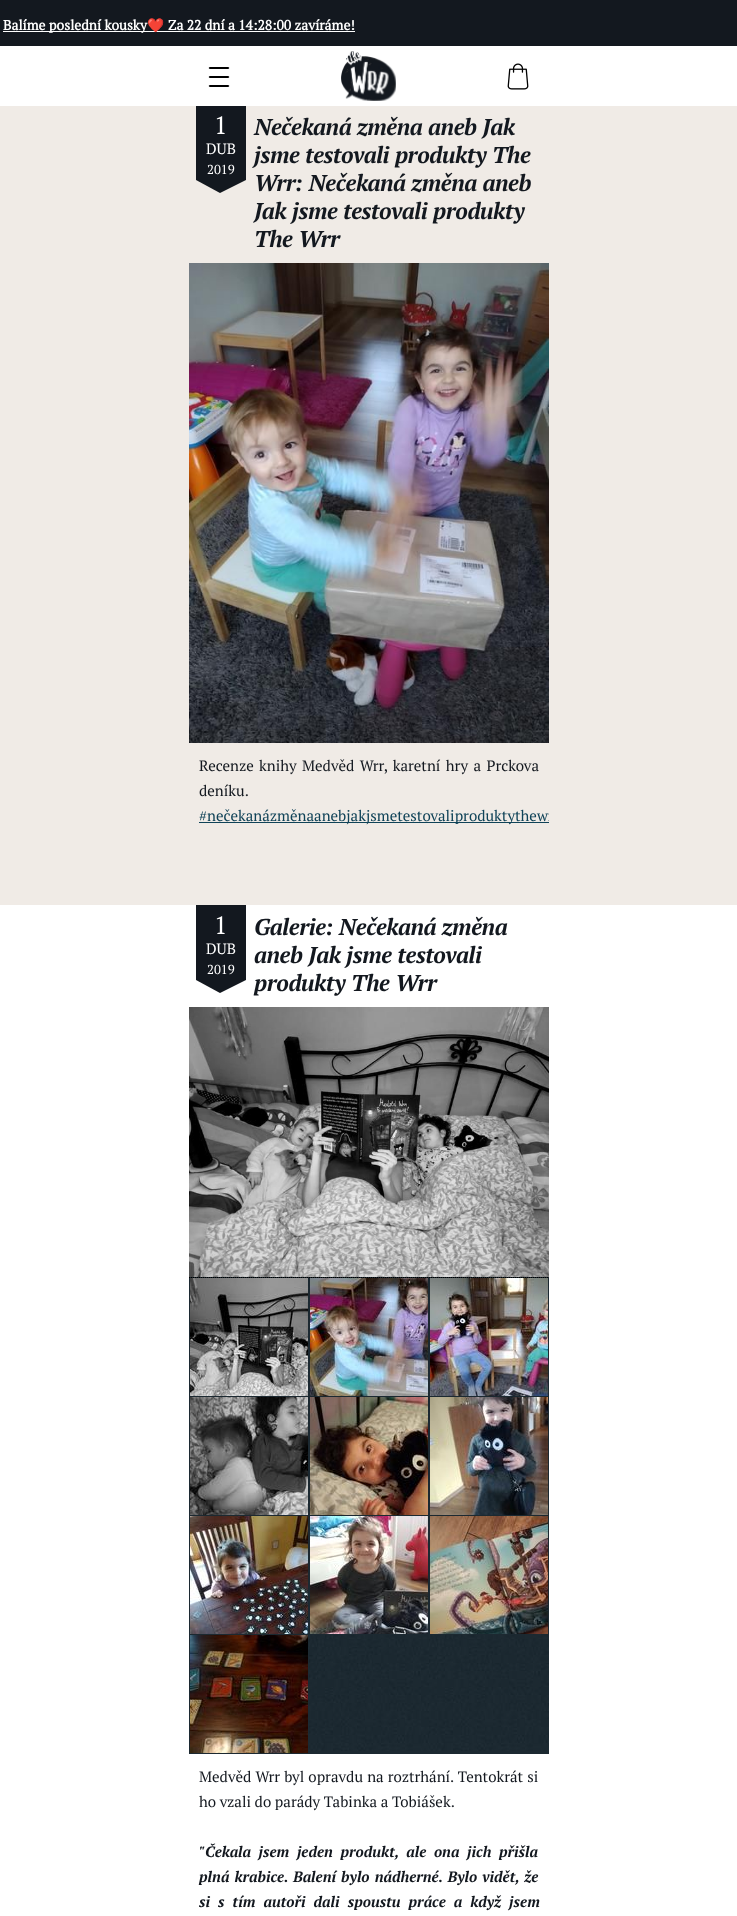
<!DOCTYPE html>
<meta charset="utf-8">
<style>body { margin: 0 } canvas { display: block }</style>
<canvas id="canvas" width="737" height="1916"></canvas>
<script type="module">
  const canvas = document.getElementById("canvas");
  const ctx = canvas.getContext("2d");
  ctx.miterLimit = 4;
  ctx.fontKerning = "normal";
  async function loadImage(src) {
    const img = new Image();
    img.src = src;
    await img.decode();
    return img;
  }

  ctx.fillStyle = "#ffffff";
  ctx.fillRect(0, 0, 737, 1916);
  ctx.fillStyle = "#f0ebe6";
  ctx.fillRect(0, 106, 737, 799);
  ctx.fillStyle = "#13181f";
  ctx.beginPath();
  ctx.moveTo(196, 103);
  ctx.lineTo(196, 180);
  ctx.lineTo(220, 193);
  ctx.lineTo(246, 180);
  ctx.lineTo(246, 103);
  ctx.closePath();
  ctx.fill();
  ctx.fillStyle = "#ffffff";
  ctx.fillRect(196, 103, 50, 3);
  ctx.fillStyle = "#13181f";
  ctx.fillRect(0, 0, 737, 46);
  ctx.fillStyle = "#ffffff";
  ctx.fillRect(3, 31, 352, 1);
  ctx.font = "bold 13.75px PT Serif";
  ctx.fillText("Balíme poslední kousky", 3, 30);
  ctx.font = "bold 13.75px Noto Color Emoji";
  ctx.fillText("❤️", 147, 30);
  ctx.font = "bold 13.75px PT Serif";
  ctx.fillText("Za 22 dní a 14:28:00 zavíráme!", 168, 30);
  ctx.drawImage(await loadImage("img1.png"), 208, 67, 22, 20);
  ctx.drawImage(await loadImage("img2.png"), 341, 51, 55, 50);
  ctx.drawImage(await loadImage("img3.png"), 507, 63, 22, 27);
  ctx.font = "25px PT Serif";
  ctx.fillText("1", 214, 134);
  ctx.font = "15px PT Serif";
  ctx.fillText("DUB", 206, 154);
  ctx.font = "13px PT Serif";
  ctx.fillText("2019", 207, 174);
  ctx.letterSpacing = "-0.45px";
  ctx.font = "italic bold 23px PT Serif";
  ctx.fillStyle = "#13181f";
  ctx.fillText("Nečekaná změna aneb Jak", 254, 135);
  ctx.fillText("jsme testovali produkty The", 254, 163);
  ctx.fillText("Wrr: Nečekaná změna aneb", 254, 191);
  ctx.fillText("Jak jsme testovali produkty", 254, 219);
  ctx.fillText("The Wrr", 254, 247);
  ctx.drawImage(await loadImage("img4.png"), 189, 263, 360, 480);
  ctx.letterSpacing = "0px";
  ctx.wordSpacing = "1.75px";
  ctx.font = "15px PT Serif";
  ctx.fillText("Recenze knihy Medvěd Wrr, karetní hry a Prckova", 199, 771);
  ctx.wordSpacing = "0px";
  ctx.fillText("deníku.", 199, 796);
  ctx.fillStyle = "#104358";
  ctx.fillRect(199, 822, 350, 1);
  ctx.save();
  ctx.beginPath();
  ctx.rect(189, 105, 360, 741);
  ctx.clip();
  ctx.fillText("#nečekanázměnaanebjakjsmetestovaliproduktythewr", 199, 821);
  ctx.restore();
  ctx.save();
  ctx.beginPath();
  ctx.rect(189, 905, 360, 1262);
  ctx.clip();
  ctx.fillStyle = "#13181f";
  ctx.beginPath();
  ctx.moveTo(196, 903);
  ctx.lineTo(196, 980);
  ctx.lineTo(220, 993);
  ctx.lineTo(246, 980);
  ctx.lineTo(246, 903);
  ctx.closePath();
  ctx.fill();
  ctx.restore();
  ctx.font = "25px PT Serif";
  ctx.fillStyle = "#ffffff";
  ctx.fillText("1", 214, 934);
  ctx.font = "15px PT Serif";
  ctx.fillText("DUB", 206, 954);
  ctx.font = "13px PT Serif";
  ctx.fillText("2019", 207, 974);
  ctx.letterSpacing = "-0.45px";
  ctx.font = "italic bold 23px PT Serif";
  ctx.fillStyle = "#13181f";
  ctx.fillText("Galerie: Nečekaná změna", 254, 935);
  ctx.fillText("aneb Jak jsme testovali", 254, 963);
  ctx.fillText("produkty The Wrr", 254, 991);
  ctx.fillStyle = "#1c2931";
  ctx.fillRect(190, 1751, 359, 3);
  ctx.drawImage(await loadImage("img5.png"), 190, 1277, 359, 474);
  ctx.drawImage(await loadImage("img6.png"), 189, 1007, 360, 270);
  ctx.beginPath();
  ctx.moveTo(189, 1277.5);
  ctx.lineTo(549, 1277.5);
  ctx.strokeStyle = "#000000";
  ctx.setLineDash([1, 1]);
  ctx.stroke();
  ctx.fillRect(308, 1289, 1, 94);
  ctx.fillRect(189, 1396, 80, 1);
  ctx.fillRect(189, 1278, 1, 119);
  ctx.drawImage(await loadImage("img7.png"), 190, 1278, 118, 118);
  ctx.fillRect(428, 1289, 1, 94);
  ctx.fillRect(325, 1396, 64, 1);
  ctx.fillRect(309, 1278, 1, 238);
  ctx.drawImage(await loadImage("img8.png"), 310, 1278, 118, 118);
  ctx.fillRect(548, 1289, 1, 94);
  ctx.fillRect(445, 1396, 64, 1);
  ctx.fillRect(429, 1278, 1, 238);
  ctx.drawImage(await loadImage("img9.png"), 430, 1278, 118, 118);
  ctx.fillRect(308, 1409, 1, 94);
  ctx.fillRect(189, 1515, 85, 1);
  ctx.fillRect(189, 1397, 1, 119);
  ctx.drawImage(await loadImage("img10.png"), 190, 1397, 118, 118);
  ctx.fillRect(428, 1409, 1, 94);
  ctx.fillRect(325, 1515, 69, 1);
  ctx.drawImage(await loadImage("img11.png"), 310, 1397, 118, 118);
  ctx.fillRect(548, 1409, 1, 94);
  ctx.fillRect(445, 1515, 69, 1);
  ctx.drawImage(await loadImage("img12.png"), 430, 1397, 118, 118);
  ctx.fillRect(308, 1529, 1, 94);
  ctx.fillRect(189, 1634, 85, 1);
  ctx.fillRect(189, 1516, 1, 238);
  ctx.drawImage(await loadImage("img13.png"), 190, 1516, 118, 118);
  ctx.fillRect(428, 1529, 1, 94);
  ctx.fillRect(309, 1634, 85, 1);
  ctx.fillRect(309, 1516, 1, 119);
  ctx.drawImage(await loadImage("img14.png"), 310, 1516, 118, 118);
  ctx.fillRect(548, 1529, 1, 94);
  ctx.fillRect(429, 1634, 85, 1);
  ctx.fillRect(429, 1516, 1, 119);
  ctx.drawImage(await loadImage("img15.png"), 430, 1516, 118, 118);
  ctx.fillRect(308, 1649, 1, 94);
  ctx.drawImage(await loadImage("img16.png"), 190, 1635, 118, 118);
  ctx.letterSpacing = "0px";
  ctx.wordSpacing = "0.5px";
  ctx.font = "15px PT Serif";
  ctx.fillStyle = "#13181f";
  ctx.fillText("Medvěd Wrr byl opravdu na roztrhání. Tentokrát si", 199, 1782);
  ctx.wordSpacing = "0px";
  ctx.fillText("ho vzali do parády Tabinka a Tobiášek.", 199, 1807);
  ctx.wordSpacing = "3.5px";
  ctx.font = "italic bold 15px PT Serif";
  ctx.fillText("\"Čekala jsem jeden produkt, ale ona jich přišla", 199, 1857);
  ctx.wordSpacing = "1px";
  ctx.fillText("plná krabice. Balení bylo nádherné. Bylo vidět, že", 199, 1882);
  ctx.wordSpacing = "4px";
  ctx.fillText("si s tím autoři dali spoustu práce a když jsem", 199, 1907);
</script>
